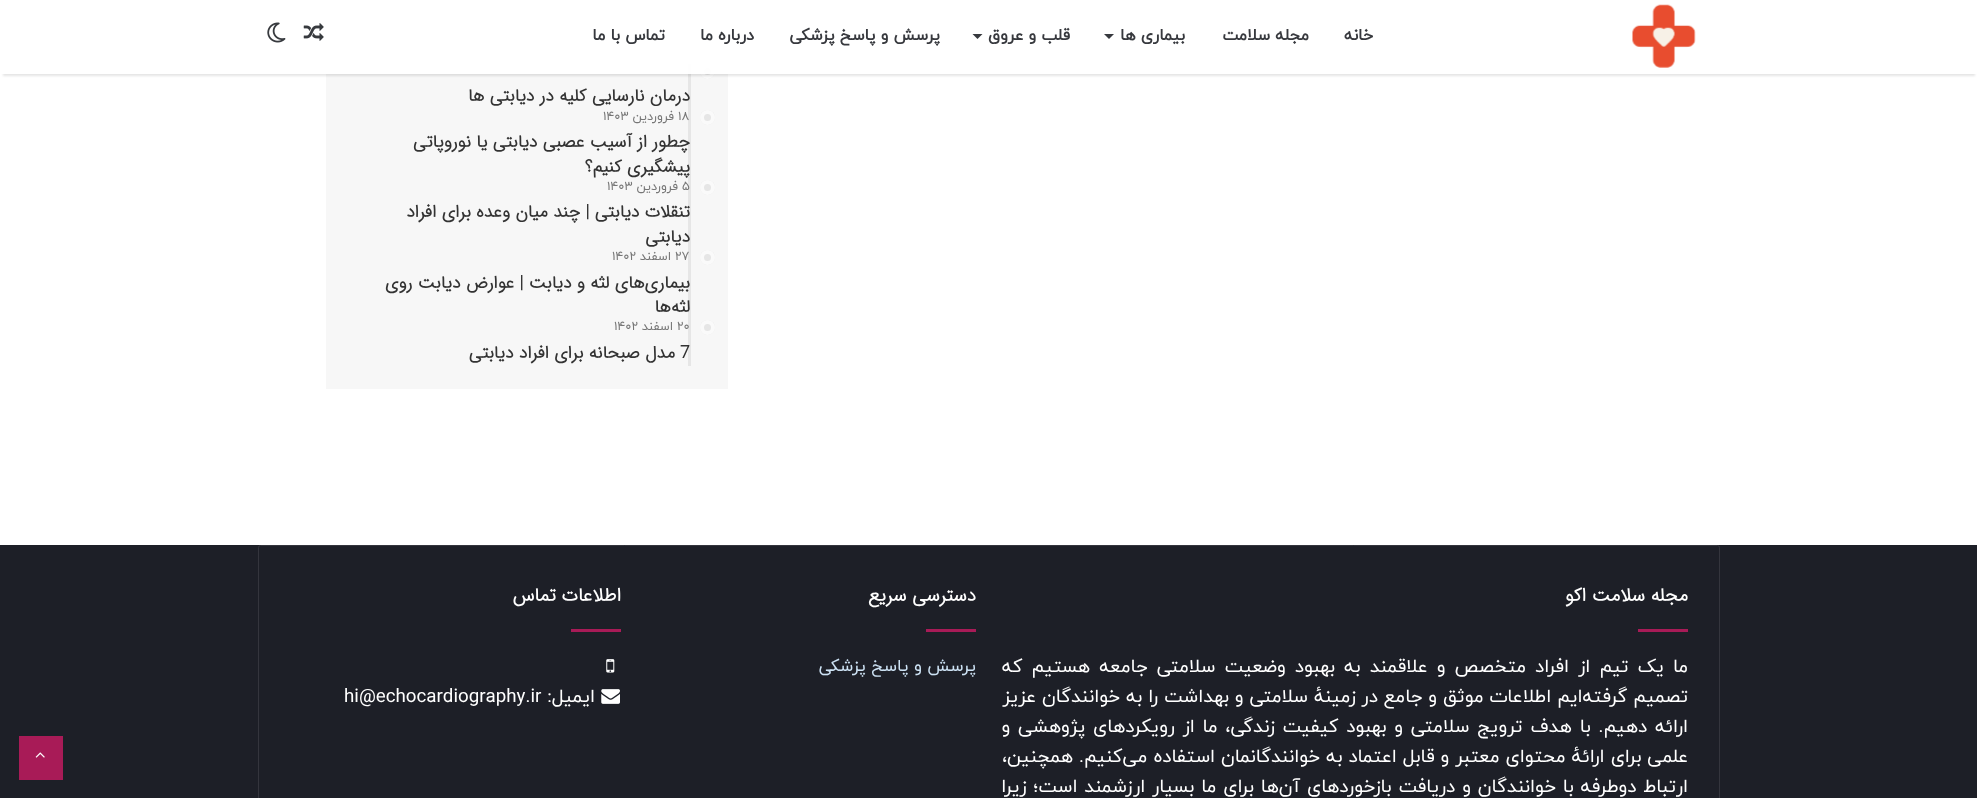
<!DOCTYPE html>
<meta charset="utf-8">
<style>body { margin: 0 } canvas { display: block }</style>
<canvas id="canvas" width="1977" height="798"></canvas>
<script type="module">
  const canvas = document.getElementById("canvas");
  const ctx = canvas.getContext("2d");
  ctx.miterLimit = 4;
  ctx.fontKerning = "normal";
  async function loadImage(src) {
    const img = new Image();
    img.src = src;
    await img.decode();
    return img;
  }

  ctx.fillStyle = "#ffffff";
  ctx.fillRect(0, 0, 1977, 798);
  ctx.fillStyle = "#f7f7f7";
  ctx.fillRect(326, 0, 402, 389);
  ctx.fillStyle = "#e6e6e6";
  ctx.fillRect(688, 64, 3, 302);
  ctx.beginPath();
  ctx.arc(707.5, 71.5, 7.5, 0, Math.PI * 2);
  ctx.fill();
  ctx.beginPath();
  ctx.arc(707.5, 71.5, 5.5, 0, Math.PI * 2);
  ctx.strokeStyle = "rgba(255, 255, 255, 0.8)";
  ctx.lineWidth = 4;
  ctx.stroke();
  ctx.save();
  ctx.beginPath();
  ctx.moveTo(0, 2);
  ctx.lineTo(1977, 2);
  ctx.lineTo(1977, 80);
  ctx.lineTo(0, 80);
  ctx.closePath();
  ctx.moveTo(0, -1);
  ctx.lineTo(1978, -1);
  ctx.lineTo(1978, 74);
  ctx.lineTo(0, 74);
  ctx.closePath();
  ctx.clip("evenodd");
  ctx.fillStyle = "rgba(0, 0, 0, 0.1)";
  ctx.filter = "blur(1px)";
  ctx.beginPath();
  ctx.rect(3, 6, 1972, 70);
  ctx.fill();
  ctx.filter = "none";
  ctx.restore();
  ctx.fillStyle = "rgba(255, 255, 255, 0.95)";
  ctx.fillRect(3, 0, 1972, 74);
  ctx.drawImage(await loadImage("img1.png"), 1632, 4, 64, 64);
  ctx.direction = "rtl";
  ctx.font = "bold 16.25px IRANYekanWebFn";
  ctx.fillStyle = "#37393e";
  ctx.fillText("خانه", 1373, 40);
  ctx.fillText("مجله سلامت", 1309, 40);
  ctx.fillText("بیماری ها", 1185, 40);
  ctx.beginPath();
  ctx.moveTo(1104, 34);
  ctx.lineTo(1114, 34);
  ctx.lineTo(1109, 39);
  ctx.closePath();
  ctx.fill();
  ctx.fillText("قلب و عروق", 1070, 40);
  ctx.beginPath();
  ctx.moveTo(972.5, 34);
  ctx.lineTo(982.5, 34);
  ctx.lineTo(977.5, 39);
  ctx.closePath();
  ctx.fill();
  ctx.fillText("پرسش و پاسخ پزشکی", 940, 40);
  ctx.fillText("درباره ما", 754, 40);
  ctx.fillText("تماس با ما", 665, 40);
  ctx.drawImage(await loadImage("img2.png"), 303, 23, 21, 18);
  ctx.drawImage(await loadImage("img3.png"), 267, 22, 19, 21);
  ctx.font = "bold 17.5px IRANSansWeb";
  ctx.fillStyle = "#333333";
  ctx.fillText("درمان نارسایی کلیه در دیابتی ها", 690, 101);
  ctx.fillStyle = "#e6e6e6";
  ctx.beginPath();
  ctx.arc(707.5, 117.5, 7.5, 0, Math.PI * 2);
  ctx.fill();
  ctx.beginPath();
  ctx.arc(707.5, 117.5, 5.5, 0, Math.PI * 2);
  ctx.stroke();
  ctx.direction = "ltr";
  ctx.font = "12.5px IRANYekanWebFn";
  ctx.fillStyle = "#767676";
  ctx.fillText("18", 678, 120);
  ctx.direction = "rtl";
  ctx.fillText("فروردین", 674, 120);
  ctx.direction = "ltr";
  ctx.fillText("1403", 603, 120);
  ctx.direction = "rtl";
  ctx.font = "bold 17.5px IRANSansWeb";
  ctx.fillStyle = "#333333";
  ctx.fillText("چطور از آسیب عصبی دیابتی یا نوروپاتی", 690, 147);
  ctx.fillText("پیشگیری کنیم؟", 690, 172);
  ctx.fillStyle = "#e6e6e6";
  ctx.beginPath();
  ctx.arc(707.5, 187.5, 7.5, 0, Math.PI * 2);
  ctx.fill();
  ctx.beginPath();
  ctx.arc(707.5, 187.5, 5.5, 0, Math.PI * 2);
  ctx.stroke();
  ctx.direction = "ltr";
  ctx.font = "12.5px IRANYekanWebFn";
  ctx.fillStyle = "#767676";
  ctx.fillText("5", 682, 190);
  ctx.direction = "rtl";
  ctx.fillText("فروردین", 678, 190);
  ctx.direction = "ltr";
  ctx.fillText("1403", 607, 190);
  ctx.direction = "rtl";
  ctx.font = "bold 17.5px IRANSansWeb";
  ctx.fillStyle = "#333333";
  ctx.fillText("تنقلات دیابتی | چند میان‌ وعده‌ برای افراد", 690, 217);
  ctx.fillText("دیابتی", 690, 242);
  ctx.fillStyle = "#e6e6e6";
  ctx.beginPath();
  ctx.arc(707.5, 257.5, 7.5, 0, Math.PI * 2);
  ctx.fill();
  ctx.beginPath();
  ctx.arc(707.5, 257.5, 5.5, 0, Math.PI * 2);
  ctx.stroke();
  ctx.direction = "ltr";
  ctx.font = "12.5px IRANYekanWebFn";
  ctx.fillStyle = "#767676";
  ctx.fillText("27", 675, 260);
  ctx.direction = "rtl";
  ctx.fillText("اسفند", 671, 260);
  ctx.direction = "ltr";
  ctx.fillText("1402", 612, 260);
  ctx.direction = "rtl";
  ctx.font = "bold 17.5px IRANSansWeb";
  ctx.fillStyle = "#333333";
  ctx.fillText("بیماری‌های لثه و دیابت | عوارض دیابت روی", 690, 288);
  ctx.fillText("لثه‌ها", 690, 312);
  ctx.fillStyle = "#e6e6e6";
  ctx.beginPath();
  ctx.arc(707.5, 327.5, 7.5, 0, Math.PI * 2);
  ctx.fill();
  ctx.beginPath();
  ctx.arc(707.5, 327.5, 5.5, 0, Math.PI * 2);
  ctx.stroke();
  ctx.direction = "ltr";
  ctx.font = "12.5px IRANYekanWebFn";
  ctx.fillStyle = "#767676";
  ctx.fillText("20", 677, 330);
  ctx.direction = "rtl";
  ctx.fillText("اسفند", 673, 330);
  ctx.direction = "ltr";
  ctx.fillText("1402", 614, 330);
  ctx.font = "bold 17.5px IRANSansWeb";
  ctx.fillStyle = "#333333";
  ctx.fillText("7", 680, 358);
  ctx.direction = "rtl";
  ctx.fillText("مدل صبحانه برای افراد دیابتی", 675, 358);
  ctx.fillStyle = "#1d1f27";
  ctx.fillRect(0, 545, 1977, 253);
  ctx.beginPath();
  ctx.roundRect(258.5, 545.5, 1461, 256, 2);
  ctx.strokeStyle = "#34353d";
  ctx.lineWidth = 1;
  ctx.stroke();
  ctx.font = "bold 18.75px IRANSansWeb";
  ctx.fillStyle = "#ffffff";
  ctx.fillText("مجله سلامت اکو", 1688, 601);
  ctx.fillStyle = "#a81b57";
  ctx.fillRect(1638, 629, 50, 3);
  ctx.wordSpacing = "3.25px";
  ctx.font = "18.75px IRANYekanWebFn";
  ctx.fillStyle = "#ffffff";
  ctx.fillText("ما یک تیم از افراد متخصص و علاقمند به بهبود وضعیت سلامتی جامعه هستیم که", 1688, 672);
  ctx.wordSpacing = "0px";
  ctx.fillText("تصمیم گرفته‌ایم اطلاعات موثق و جامع در زمینهٔ سلامتی و بهداشت را به خوانندگان عزیز", 1688, 702);
  ctx.wordSpacing = "1.9px";
  ctx.fillText("ارائه دهیم. با هدف ترویج سلامتی و بهبود کیفیت زندگی، ما از رویکردهای پژوهشی و", 1688, 732);
  ctx.wordSpacing = "0.1px";
  ctx.fillText("علمی برای ارائهٔ محتوای معتبر و قابل اعتماد به خوانندگانمان استفاده می‌کنیم. همچنین،", 1688, 762);
  ctx.wordSpacing = "1px";
  ctx.fillText("ارتباط دوطرفه با خوانندگان و دریافت بازخوردهای آن‌ها برای ما بسیار ارزشمند است؛ زیرا", 1688, 792);
  ctx.wordSpacing = "0px";
  ctx.font = "bold 18.75px IRANSansWeb";
  ctx.fillText("دسترسی سریع", 976, 601);
  ctx.fillStyle = "#a81b57";
  ctx.fillRect(926, 629, 50, 3);
  ctx.font = "17px IRANYekanWebFn";
  ctx.fillStyle = "#cde2f4";
  ctx.fillText("پرسش و پاسخ پزشکی", 976, 671);
  ctx.font = "bold 18.75px IRANSansWeb";
  ctx.fillStyle = "#ffffff";
  ctx.fillText("اطلاعات تماس", 621, 601);
  ctx.fillStyle = "#a81b57";
  ctx.fillRect(571, 629, 50, 3);
  ctx.drawImage(await loadImage("img4.png"), 606, 659, 9, 14);
  ctx.drawImage(await loadImage("img5.png"), 601, 689, 19, 15);
  ctx.font = "18.75px IRANYekanWebFn";
  ctx.fillStyle = "#ffffff";
  ctx.fillText("ایمیل:", 595, 702);
  ctx.direction = "ltr";
  ctx.fillText("hi@echocardiography.ir", 344, 702);
  ctx.fillStyle = "#a81b57";
  ctx.fillRect(19, 736, 44, 44);
  ctx.drawImage(await loadImage("img6.png"), 35, 752, 10, 6);
</script>
